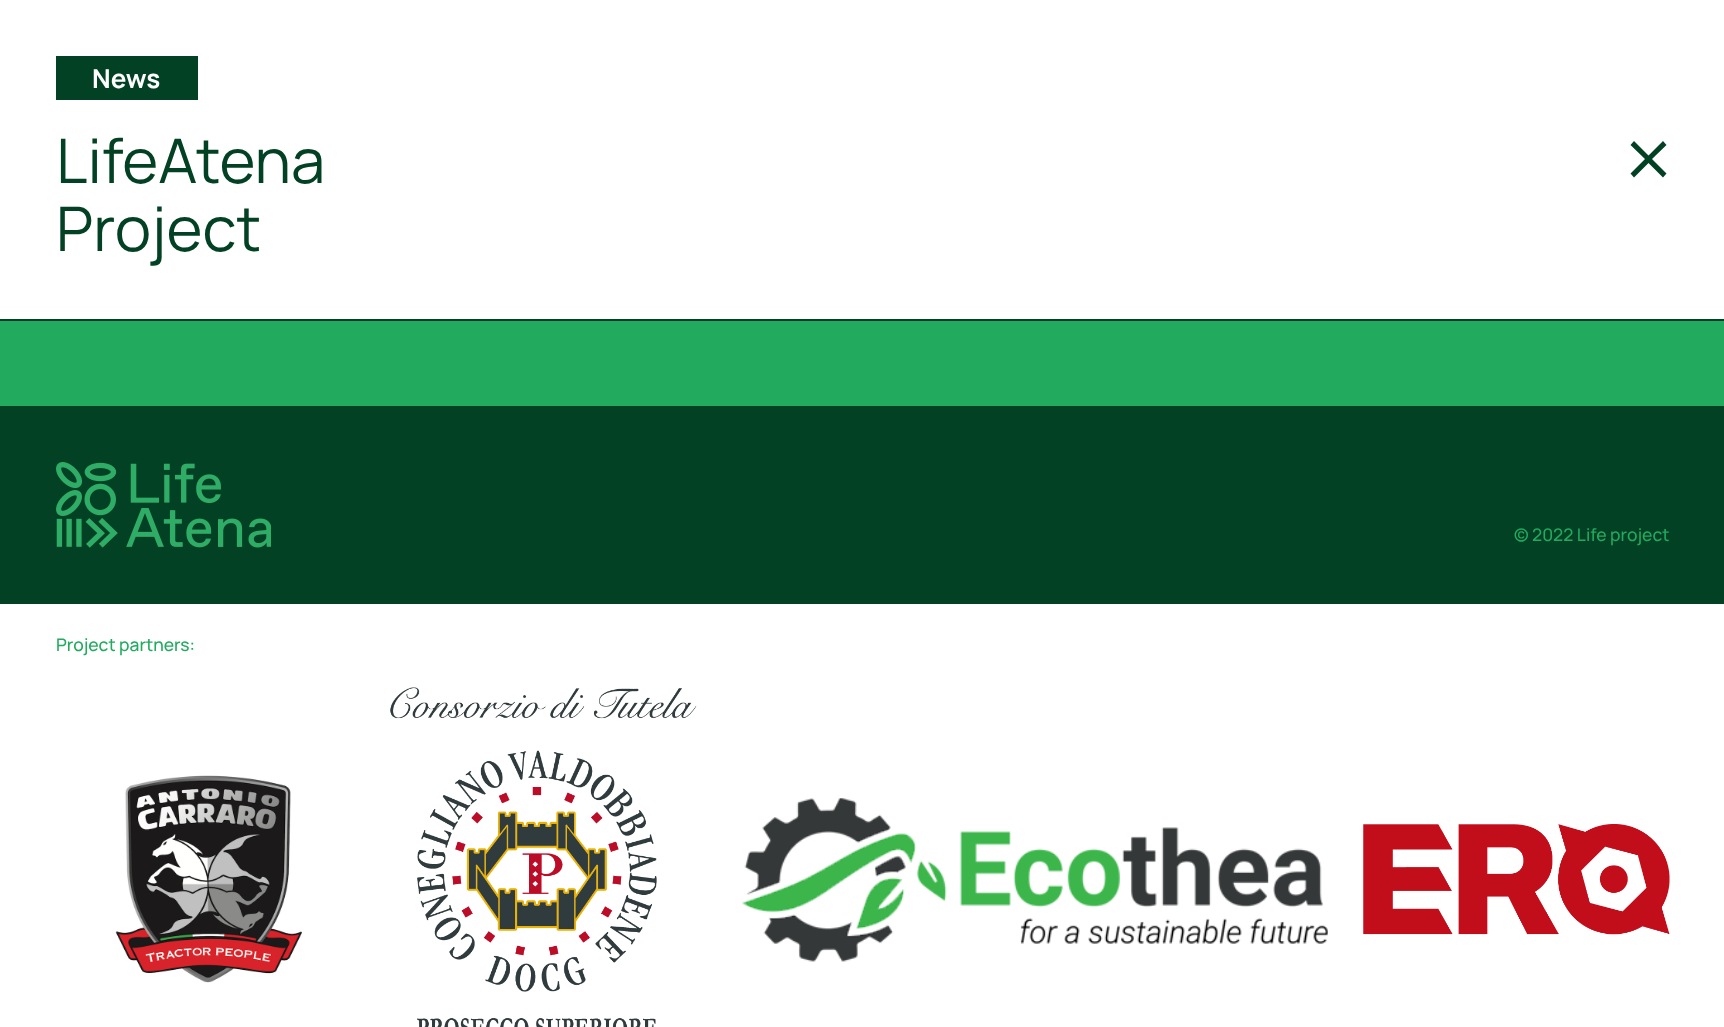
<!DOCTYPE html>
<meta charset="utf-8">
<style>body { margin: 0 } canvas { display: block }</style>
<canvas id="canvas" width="1724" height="1027"></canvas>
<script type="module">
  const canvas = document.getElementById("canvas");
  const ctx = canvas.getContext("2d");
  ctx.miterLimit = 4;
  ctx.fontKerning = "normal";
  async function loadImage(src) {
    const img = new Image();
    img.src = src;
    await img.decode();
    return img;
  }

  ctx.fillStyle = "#ffffff";
  ctx.fillRect(0, 0, 1724, 1027);
  ctx.fillStyle = "#034124";
  ctx.fillRect(0, 319, 1724, 2);
  ctx.fillRect(56, 56, 142, 44);
  ctx.font = "bold 26px Manrope";
  ctx.fillStyle = "#ffffff";
  ctx.fillText("News", 92, 88);
  ctx.font = "61.5px Manrope";
  ctx.fillStyle = "#034124";
  ctx.fillText("LifeAtena", 56, 183);
  ctx.fillText("Project", 56, 251);
  ctx.beginPath();
  ctx.moveTo(1636, 143);
  ctx.lineTo(1634, 141);
  ctx.lineTo(1630.5, 145);
  ctx.lineTo(1645, 159);
  ctx.lineTo(1630.5, 173.5);
  ctx.lineTo(1634, 177.5);
  ctx.lineTo(1648.5, 163);
  ctx.lineTo(1663, 177.5);
  ctx.lineTo(1666.5, 173.5);
  ctx.lineTo(1652, 159);
  ctx.lineTo(1666.5, 145);
  ctx.lineTo(1663, 141);
  ctx.lineTo(1648.5, 155.5);
  ctx.closePath();
  ctx.fill();
  ctx.fillStyle = "#22aa5f";
  ctx.fillRect(0, 321, 1724, 85);
  ctx.fillStyle = "#034124";
  ctx.fillRect(0, 406, 1724, 198);
  ctx.drawImage(await loadImage("img1.png"), 56, 462, 215, 86);
  ctx.font = "500 17.5px Manrope";
  ctx.fillStyle = "#22aa5f";
  ctx.fillText("© 2022 Life project", 1514, 541);
  ctx.fillText("Project partners:", 56, 651);
  ctx.drawImage(await loadImage("img2.png"), 115, 775, 187, 208);
  ctx.drawImage(await loadImage("img3.png"), 390, 687, 307, 340);
  ctx.drawImage(await loadImage("img4.png"), 742, 798, 586, 164);
  ctx.drawImage(await loadImage("img5.png"), 1363, 824, 307, 111);
</script>
